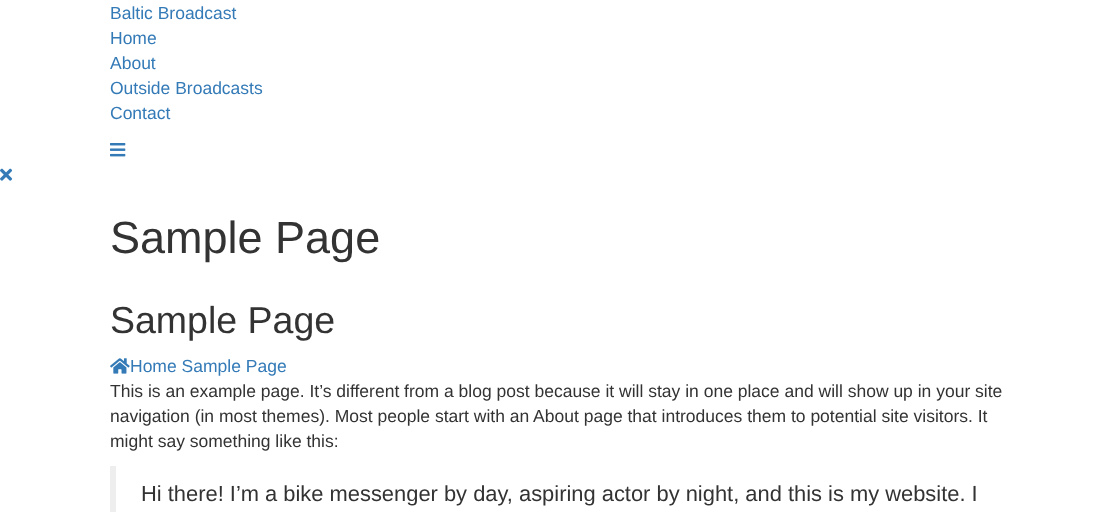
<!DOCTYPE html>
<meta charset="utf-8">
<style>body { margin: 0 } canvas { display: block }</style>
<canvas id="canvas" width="1119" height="512"></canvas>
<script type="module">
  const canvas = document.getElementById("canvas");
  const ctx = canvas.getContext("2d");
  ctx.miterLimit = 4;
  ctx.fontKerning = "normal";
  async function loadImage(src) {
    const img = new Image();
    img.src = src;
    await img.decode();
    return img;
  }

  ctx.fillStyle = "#ffffff";
  ctx.fillRect(0, 0, 1119, 512);
  ctx.font = "17.5px Liberation Sans";
  ctx.fillStyle = "#337ab7";
  ctx.fillText("Baltic Broadcast", 110, 19);
  ctx.fillText("Home", 110, 44);
  ctx.fillText("About", 110, 69);
  ctx.fillText("Outside Broadcasts", 110, 94);
  ctx.fillText("Contact", 110, 119);
  ctx.drawImage(await loadImage("img1.png"), 110, 143, 16, 14);
  ctx.drawImage(await loadImage("img2.png"), 0, 168, 13, 13);
  ctx.font = "45px Liberation Sans";
  ctx.fillStyle = "#333333";
  ctx.fillText("Sample Page", 110, 253);
  ctx.font = "37.5px Liberation Sans";
  ctx.fillText("Sample Page", 110, 333);
  ctx.drawImage(await loadImage("img3.png"), 110, 358, 20, 16);
  ctx.font = "17.5px Liberation Sans";
  ctx.fillStyle = "#337ab7";
  ctx.fillText("Home Sample Page", 130, 372);
  ctx.fillStyle = "#333333";
  ctx.fillText("This is an example page. It’s different from a blog post because it will stay in one place and will show up in your site", 110, 397);
  ctx.fillText("navigation (in most themes). Most people start with an About page that introduces them to potential site visitors. It", 110, 422);
  ctx.fillText("might say something like this:", 110, 447);
  ctx.fillStyle = "#eeeeee";
  ctx.fillRect(110, 466, 6, 46);
  ctx.font = "21.9px Liberation Sans";
  ctx.fillStyle = "#333333";
  ctx.fillText("Hi there! I’m a bike messenger by day, aspiring actor by night, and this is my website. I", 141, 501);
</script>
